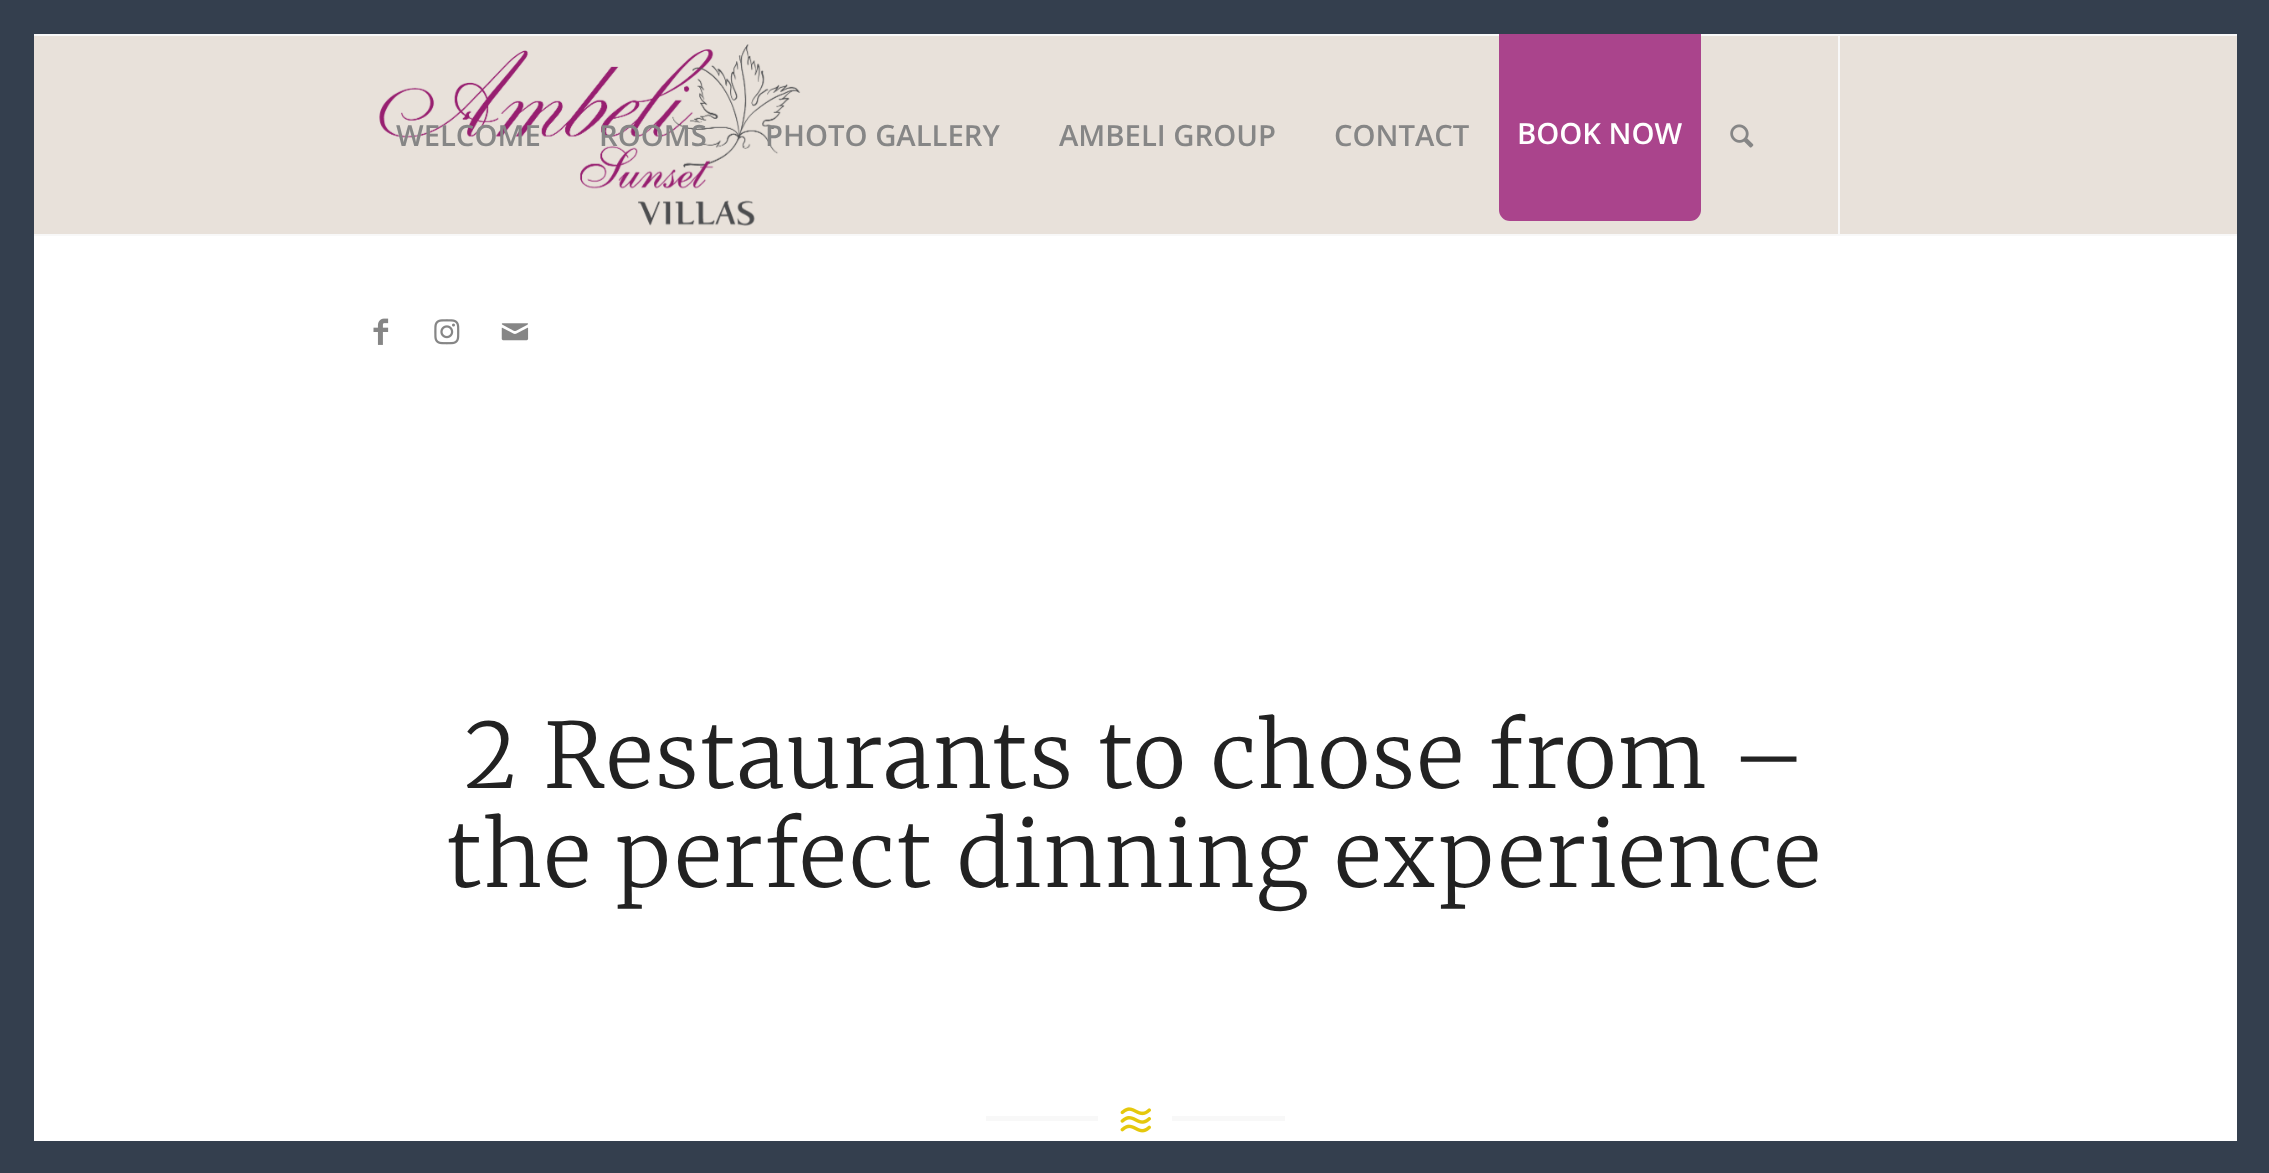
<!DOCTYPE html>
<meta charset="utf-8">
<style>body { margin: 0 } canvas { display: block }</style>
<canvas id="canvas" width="2269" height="1173"></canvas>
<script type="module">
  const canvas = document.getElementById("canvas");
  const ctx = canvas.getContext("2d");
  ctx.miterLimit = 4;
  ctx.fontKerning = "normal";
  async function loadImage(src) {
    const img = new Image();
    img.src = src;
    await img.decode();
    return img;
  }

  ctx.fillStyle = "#e8e1da";
  ctx.fillRect(0, 0, 2269, 1173);
  ctx.fillStyle = "#343f4e";
  ctx.fillRect(0, 0, 34, 1173);
  ctx.fillStyle = "#f8f8f8";
  ctx.fillRect(34, 34, 2203, 2);
  ctx.fillStyle = "#aa448c";
  ctx.beginPath();
  ctx.roundRect(1499, 23, 202, 198, 11);
  ctx.fill();
  ctx.fillStyle = "#343f4e";
  ctx.fillRect(34, 0, 2203, 34);
  ctx.fillRect(2237, 0, 32, 1173);
  ctx.fillStyle = "#f8f8f8";
  ctx.fillRect(34, 234, 2203, 2);
  ctx.drawImage(await loadImage("img1.png"), 379, 44, 422, 182);
  ctx.fillRect(1838, 36, 2, 198);
  ctx.font = "600 29.25px Open Sans";
  ctx.fillStyle = "#868686";
  ctx.fillText("WELCOME", 396, 146);
  ctx.fillText("ROOMS", 599, 146);
  ctx.fillText("PHOTO GALLERY", 765, 146);
  ctx.fillText("AMBELI GROUP", 1059, 146);
  ctx.fillText("CONTACT", 1334, 146);
  ctx.fillStyle = "#ffffff";
  ctx.fillText("BOOK NOW", 1517, 144);
  ctx.drawImage(await loadImage("img2.png"), 1730, 124, 24, 24);
  ctx.fillRect(34, 236, 2203, 905);
  ctx.drawImage(await loadImage("img3.png"), 373, 318, 16, 27);
  ctx.drawImage(await loadImage("img4.png"), 434, 319, 26, 26);
  ctx.drawImage(await loadImage("img5.png"), 501, 323, 28, 18);
  ctx.letterSpacing = "2.25px";
  ctx.font = "300 90px Merriweather";
  ctx.fillStyle = "#222222";
  ctx.fillText("2 Restaurants to chose from –", 464, 788);
  ctx.fillText("the perfect dinning experience", 447, 887);
  ctx.fillStyle = "#f8f8f8";
  ctx.fillRect(986, 1116, 112, 5);
  ctx.drawImage(await loadImage("img6.png"), 1120, 1107, 31, 26);
  ctx.fillRect(1172, 1116, 113, 5);
  ctx.fillStyle = "#343f4e";
  ctx.fillRect(34, 1141, 2203, 32);
</script>
